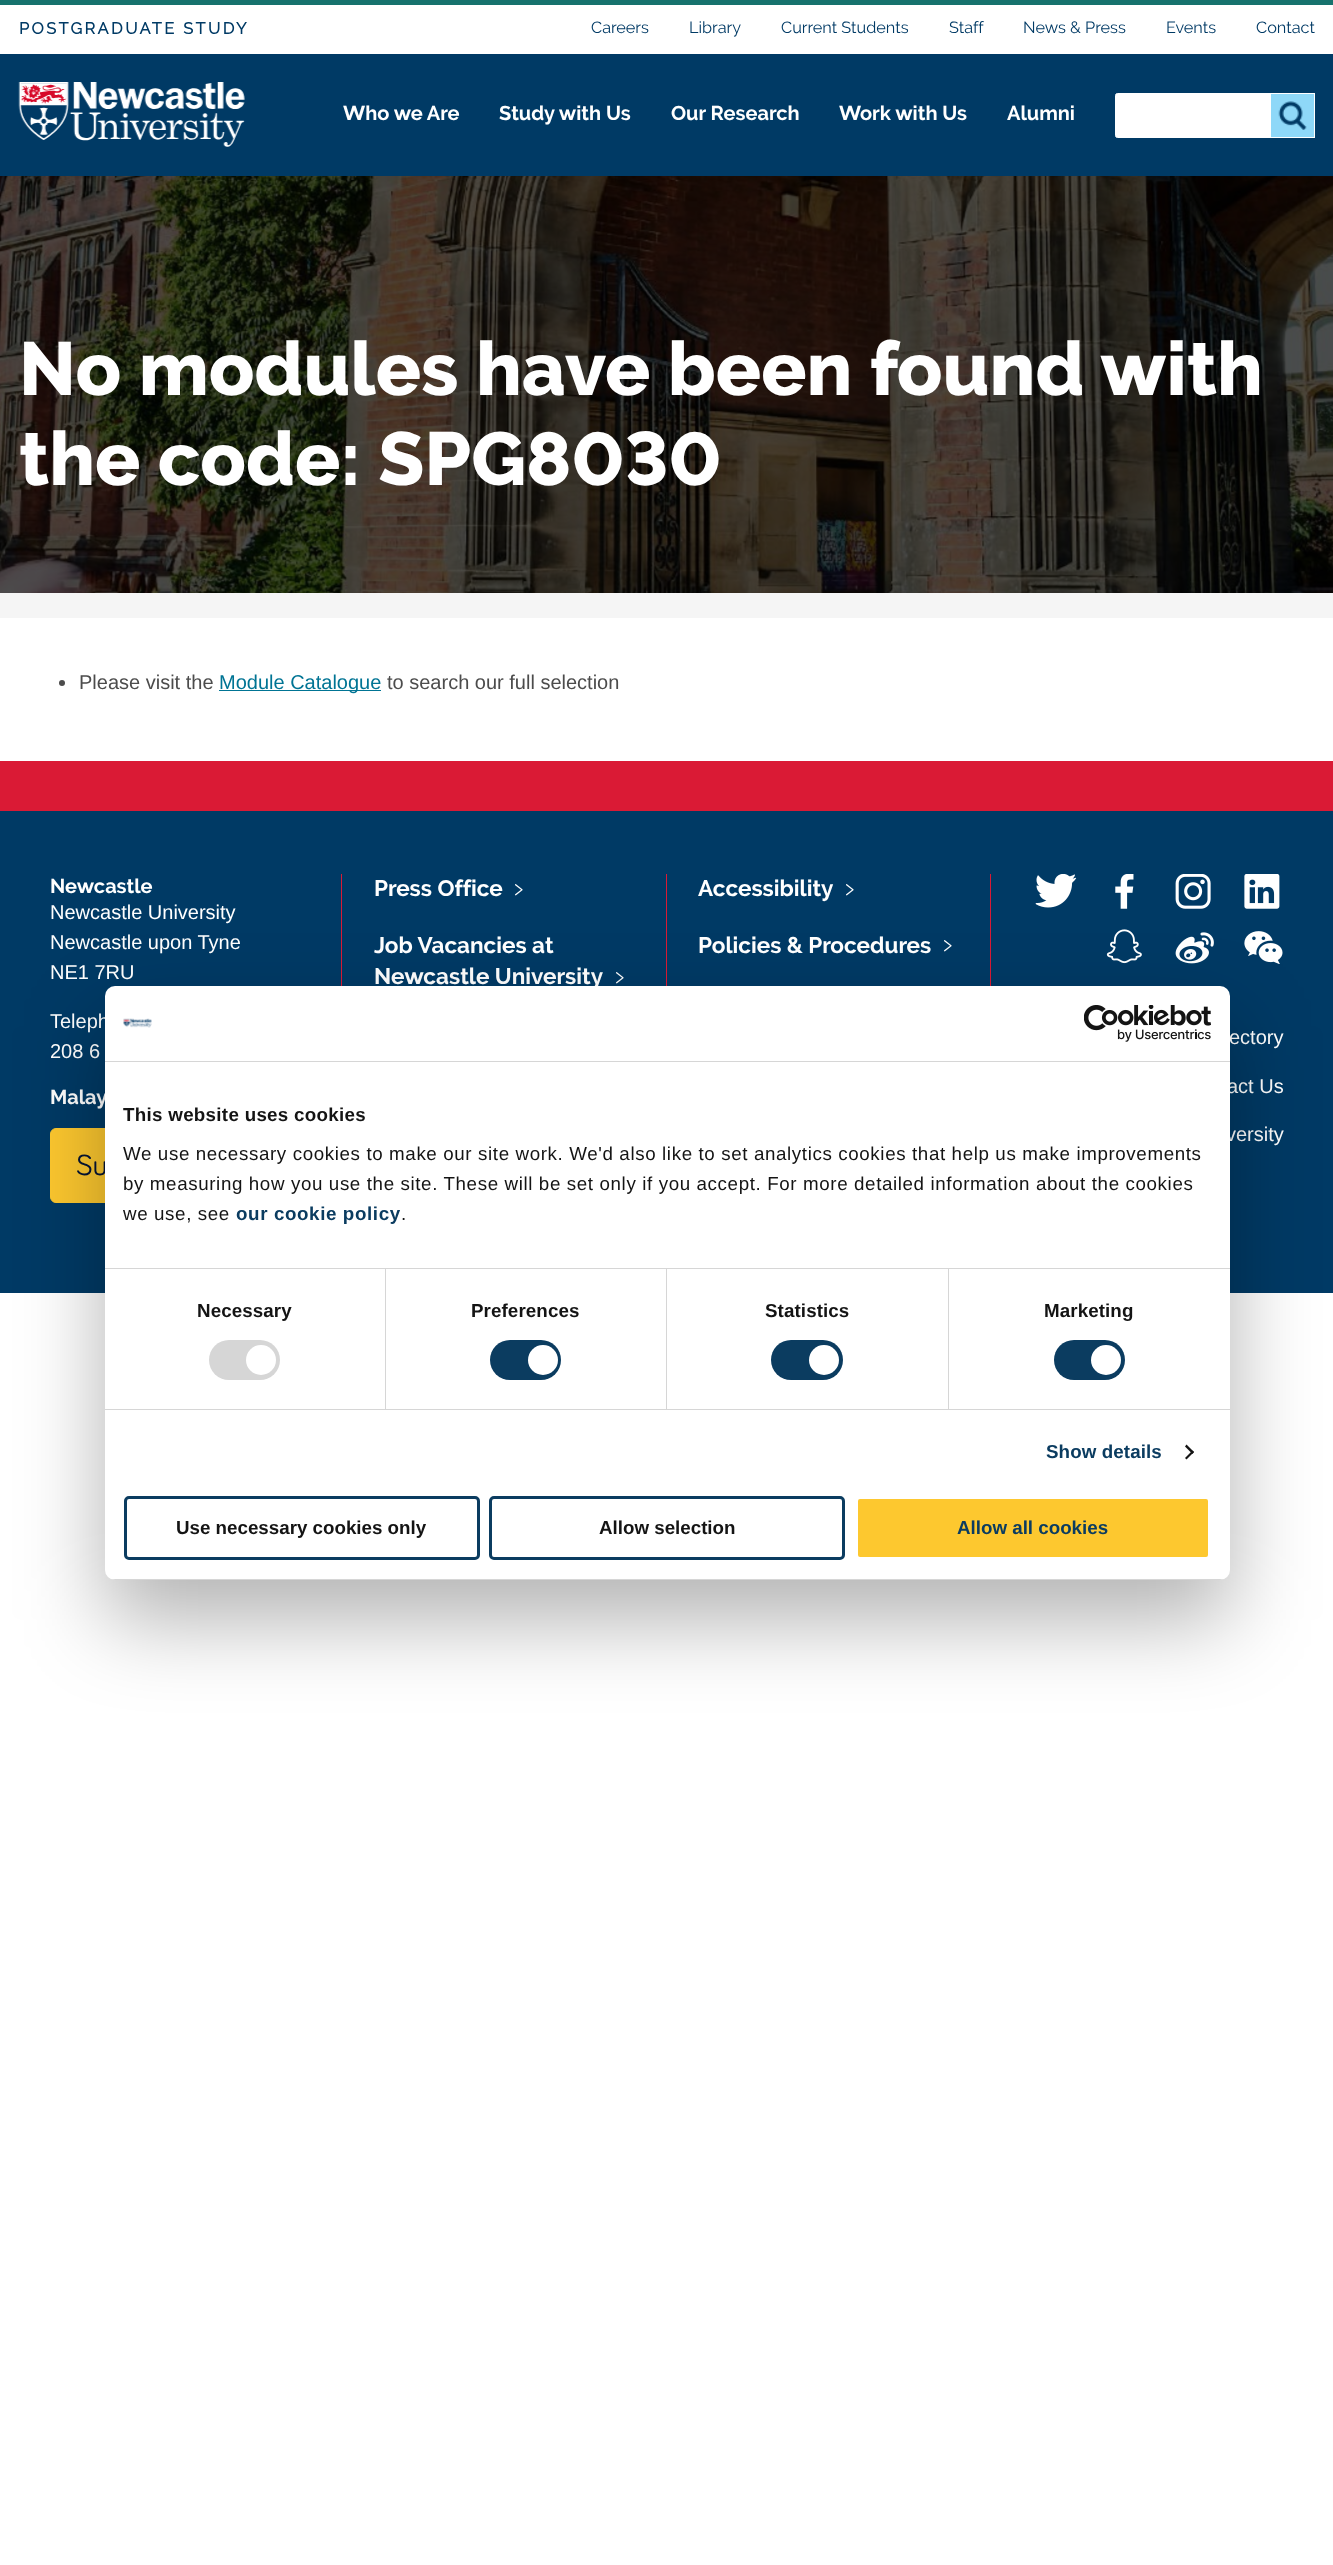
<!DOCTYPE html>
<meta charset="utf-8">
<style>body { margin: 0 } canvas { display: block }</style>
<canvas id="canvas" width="1333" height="2565"></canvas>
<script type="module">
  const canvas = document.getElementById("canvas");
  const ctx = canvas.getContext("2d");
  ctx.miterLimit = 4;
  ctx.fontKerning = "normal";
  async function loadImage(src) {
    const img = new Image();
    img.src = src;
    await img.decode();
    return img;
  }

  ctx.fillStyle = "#ffffff";
  ctx.fillRect(0, 0, 1333, 2565);
  ctx.letterSpacing = "2.5px";
  ctx.font = "bold 16.25px 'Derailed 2'";
  ctx.fillStyle = "#003a65";
  ctx.fillText("POSTGRADUATE STUDY", 19, 34);
  ctx.letterSpacing = "0px";
  ctx.font = "16.25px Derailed";
  ctx.fillText("Careers", 591, 33);
  ctx.fillText("Library", 689, 33);
  ctx.fillText("Current Students", 781, 33);
  ctx.fillText("Staff", 949, 33);
  ctx.fillText("News & Press", 1023, 33);
  ctx.fillText("Events", 1166, 33);
  ctx.fillText("Contact", 1256, 33);
  ctx.fillRect(0, 54, 1333, 122);
  ctx.fillStyle = "#16726d";
  ctx.fillRect(0, 0, 1333, 5);
  ctx.drawImage(await loadImage("img1.png"), 18, 82, 227, 65);
  ctx.font = "bold 20px Derailed";
  ctx.fillStyle = "#ffffff";
  ctx.fillText("Who we Are", 343, 120);
  ctx.fillText("Study with Us", 499, 120);
  ctx.fillText("Our Research", 671, 120);
  ctx.fillText("Work with Us", 839, 120);
  ctx.fillText("Alumni", 1007, 120);
  ctx.beginPath();
  ctx.roundRect(1115.5, 93.5, 199, 44, 2);
  ctx.fill();
  ctx.strokeStyle = "#ffffff";
  ctx.stroke();
  ctx.fillStyle = "#8ed8f8";
  ctx.fillRect(1271, 94, 43, 43);
  ctx.drawImage(await loadImage("img2.png"), 1278, 101, 29, 29);
  ctx.strokeRect(1270.5, 93.5, 44, 44);
  ctx.drawImage(await loadImage("img3.png"), 0, 176, 1333, 417);
  ctx.font = "800 75px Derailed";
  ctx.fillStyle = "#ffffff";
  ctx.fillText("No modules have been found with", 19, 395);
  ctx.fillText("the code: SPG8030", 19, 485);
  ctx.fillStyle = "#f5f5f5";
  ctx.fillRect(0, 593, 1333, 25);
  ctx.fillStyle = "#4c4c4c";
  ctx.beginPath();
  ctx.arc(62, 683, 3, 0, Math.PI * 2);
  ctx.fill();
  ctx.font = "20px Liberation Sans";
  ctx.fillText("Please visit the", 79, 689);
  ctx.fillStyle = "#007494";
  ctx.fillRect(219, 690, 162, 1);
  ctx.fillText("Module Catalogue", 219, 689);
  ctx.fillStyle = "#4c4c4c";
  ctx.fillText("to search our full selection", 387, 689);
  ctx.fillStyle = "#003a65";
  ctx.fillRect(0, 811, 1333, 482);
  ctx.fillStyle = "#da1a35";
  ctx.fillRect(0, 761, 1333, 50);
  ctx.fillRect(341, 874, 1, 112);
  ctx.font = "bold 20px Derailed";
  ctx.fillStyle = "#ffffff";
  ctx.fillText("Newcastle", 50, 893);
  ctx.font = "20px Liberation Sans";
  ctx.fillText("Newcastle University", 50, 919);
  ctx.fillText("Newcastle upon Tyne", 50, 949);
  ctx.fillText("NE1 7RU", 50, 979);
  ctx.fillText("Teleph", 50, 1028);
  ctx.fillText("208 6", 50, 1058);
  ctx.font = "bold 20px Derailed";
  ctx.fillText("Malay", 50, 1104);
  ctx.fillStyle = "#fdc82f";
  ctx.beginPath();
  ctx.roundRect(50.5, 1128.5, 259, 74, 5.5);
  ctx.fill();
  ctx.strokeStyle = "#fdc82f";
  ctx.stroke();
  ctx.font = "30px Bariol";
  ctx.fillStyle = "#051435";
  ctx.fillText("Su", 76, 1175);
  ctx.fillStyle = "#da1a35";
  ctx.fillRect(666, 874, 1, 112);
  ctx.font = "bold 22.5px Derailed";
  ctx.fillStyle = "#ffffff";
  ctx.fillText("Press Office", 374, 896);
  ctx.font = "22.5px Bariol";
  ctx.fillText(">", 515, 895);
  ctx.font = "bold 22.5px Derailed";
  ctx.fillText("Job Vacancies at", 374, 953);
  ctx.fillText("Newcastle University", 374, 984);
  ctx.font = "22.5px Bariol";
  ctx.fillText(">", 616, 983);
  ctx.fillStyle = "#da1a35";
  ctx.fillRect(990, 874, 1, 112);
  ctx.font = "bold 22.5px Derailed";
  ctx.fillStyle = "#ffffff";
  ctx.fillText("Accessibility", 698, 896);
  ctx.font = "22.5px Bariol";
  ctx.fillText(">", 846, 895);
  ctx.font = "bold 22.5px Derailed";
  ctx.fillText("Policies & Procedures", 698, 953);
  ctx.font = "22.5px Bariol";
  ctx.fillText(">", 944, 951);
  ctx.drawImage(await loadImage("img4.png"), 1035, 874, 42, 34);
  ctx.drawImage(await loadImage("img5.png"), 1115, 874, 19, 35);
  ctx.drawImage(await loadImage("img6.png"), 1175, 874, 36, 35);
  ctx.drawImage(await loadImage("img7.png"), 1244, 874, 36, 35);
  ctx.drawImage(await loadImage("img8.png"), 1106, 929, 36, 35);
  ctx.drawImage(await loadImage("img9.png"), 1175, 932, 39, 32);
  ctx.drawImage(await loadImage("img10.png"), 1244, 931, 39, 33);
  ctx.font = "20px Liberation Sans";
  ctx.fillText("ectory", 1229, 1044);
  ctx.fillText("act Us", 1227, 1093);
  ctx.fillText("versity", 1226, 1141);
  ctx.fillStyle = "rgba(0, 0, 0, 0.3)";
  ctx.filter = "blur(42.5px)";
  ctx.beginPath();
  ctx.roundRect(105, 1026, 1125, 594, 10);
  ctx.fill();
  ctx.filter = "none";
  ctx.fillStyle = "#ffffff";
  ctx.beginPath();
  ctx.roundRect(105, 986, 1125, 594, 10);
  ctx.fill();
  ctx.fillStyle = "#d6d6d6";
  ctx.fillRect(105, 1061, 1125, 1);
  ctx.drawImage(await loadImage("img11.png"), 123, 1018, 29, 10);
  ctx.drawImage(await loadImage("img12.png"), 1084, 1005, 127, 37);
  ctx.fillRect(105, 1268, 1125, 1);
  ctx.letterSpacing = "0.3px";
  ctx.font = "bold 18.75px Liberation Sans";
  ctx.fillStyle = "#141414";
  ctx.fillText("This website uses cookies", 123, 1121);
  ctx.letterSpacing = "0.62px";
  ctx.font = "18.75px Liberation Sans";
  ctx.fillText("We use necessary cookies to make our site work. We'd also like to set analytics cookies that help us make improvements", 123, 1160);
  ctx.fillText("by measuring how you use the site. These will be set only if you accept. For more detailed information about the cookies", 123, 1190);
  ctx.fillText("we use, see", 123, 1220);
  ctx.font = "bold 18.75px Liberation Sans";
  ctx.fillStyle = "#0b3c60";
  ctx.fillText("our cookie policy", 236, 1220);
  ctx.font = "18.75px Liberation Sans";
  ctx.fillStyle = "#141414";
  ctx.fillText(".", 401, 1220);
  ctx.fillStyle = "#d6d6d6";
  ctx.fillRect(105, 1409, 1125, 1);
  ctx.fillRect(385, 1269, 1, 140);
  ctx.letterSpacing = "0.1px";
  ctx.font = "bold 18.75px Liberation Sans";
  ctx.fillStyle = "#141414";
  ctx.fillText("Necessary", 197, 1317);
  ctx.fillStyle = "#d6d6d6";
  ctx.beginPath();
  ctx.roundRect(209, 1340, 71, 40, 20);
  ctx.fill();
  ctx.fillStyle = "#ffffff";
  ctx.beginPath();
  ctx.arc(261, 1360, 15, 0, Math.PI * 2);
  ctx.fill();
  ctx.fillStyle = "#d6d6d6";
  ctx.fillRect(666, 1269, 1, 140);
  ctx.fillStyle = "#141414";
  ctx.fillText("Preferences", 471, 1317);
  ctx.fillStyle = "#0b3c60";
  ctx.beginPath();
  ctx.roundRect(490, 1340, 71, 40, 20);
  ctx.fill();
  ctx.fillStyle = "#ffffff";
  ctx.beginPath();
  ctx.arc(543, 1360, 15, 0, Math.PI * 2);
  ctx.fill();
  ctx.fillStyle = "#d6d6d6";
  ctx.fillRect(948, 1269, 1, 140);
  ctx.fillStyle = "#141414";
  ctx.fillText("Statistics", 765, 1317);
  ctx.fillStyle = "#0b3c60";
  ctx.beginPath();
  ctx.roundRect(771, 1340, 72, 40, 20);
  ctx.fill();
  ctx.fillStyle = "#ffffff";
  ctx.beginPath();
  ctx.arc(824, 1360, 15, 0, Math.PI * 2);
  ctx.fill();
  ctx.fillStyle = "#141414";
  ctx.fillText("Marketing", 1044, 1317);
  ctx.fillStyle = "#0b3c60";
  ctx.beginPath();
  ctx.roundRect(1054, 1340, 71, 40, 20);
  ctx.fill();
  ctx.fillStyle = "#ffffff";
  ctx.beginPath();
  ctx.arc(1106, 1360, 15, 0, Math.PI * 2);
  ctx.fill();
  ctx.fillStyle = "#0b3c60";
  ctx.fillText("Show details", 1046, 1458);
  ctx.fillStyle = "#141414";
  ctx.beginPath();
  ctx.moveTo(1186.5, 1444.5);
  ctx.lineTo(1194, 1452);
  ctx.lineTo(1192.5, 1454);
  ctx.lineTo(1185, 1446.5);
  ctx.closePath();
  ctx.fill();
  ctx.beginPath();
  ctx.moveTo(1192.5, 1450.5);
  ctx.lineTo(1194, 1452);
  ctx.lineTo(1186.5, 1459.5);
  ctx.lineTo(1185, 1458);
  ctx.closePath();
  ctx.fill();
  ctx.save();
  ctx.beginPath();
  ctx.roundRect(105, 986, 1125, 594, 10);
  ctx.clip();
  ctx.fillStyle = "#d6d6d6";
  ctx.fillRect(105, 1579, 1125, 1);
  ctx.restore();
  ctx.beginPath();
  ctx.roundRect(125.5, 1497.5, 353, 61, 3.5);
  ctx.strokeStyle = "#0b3c60";
  ctx.lineWidth = 3;
  ctx.stroke();
  ctx.letterSpacing = "0px";
  ctx.fillText("Use necessary cookies only", 176, 1534);
  ctx.beginPath();
  ctx.roundRect(490.5, 1497.5, 353, 61, 3.5);
  ctx.stroke();
  ctx.fillText("Allow selection", 599, 1534);
  ctx.fillStyle = "#fdc82f";
  ctx.beginPath();
  ctx.roundRect(856.5, 1497.5, 353, 61, 3.5);
  ctx.fill();
  ctx.strokeStyle = "#ffffff";
  ctx.stroke();
  ctx.fillStyle = "#0b3c60";
  ctx.fillText("Allow all cookies", 957, 1534);
</script>
